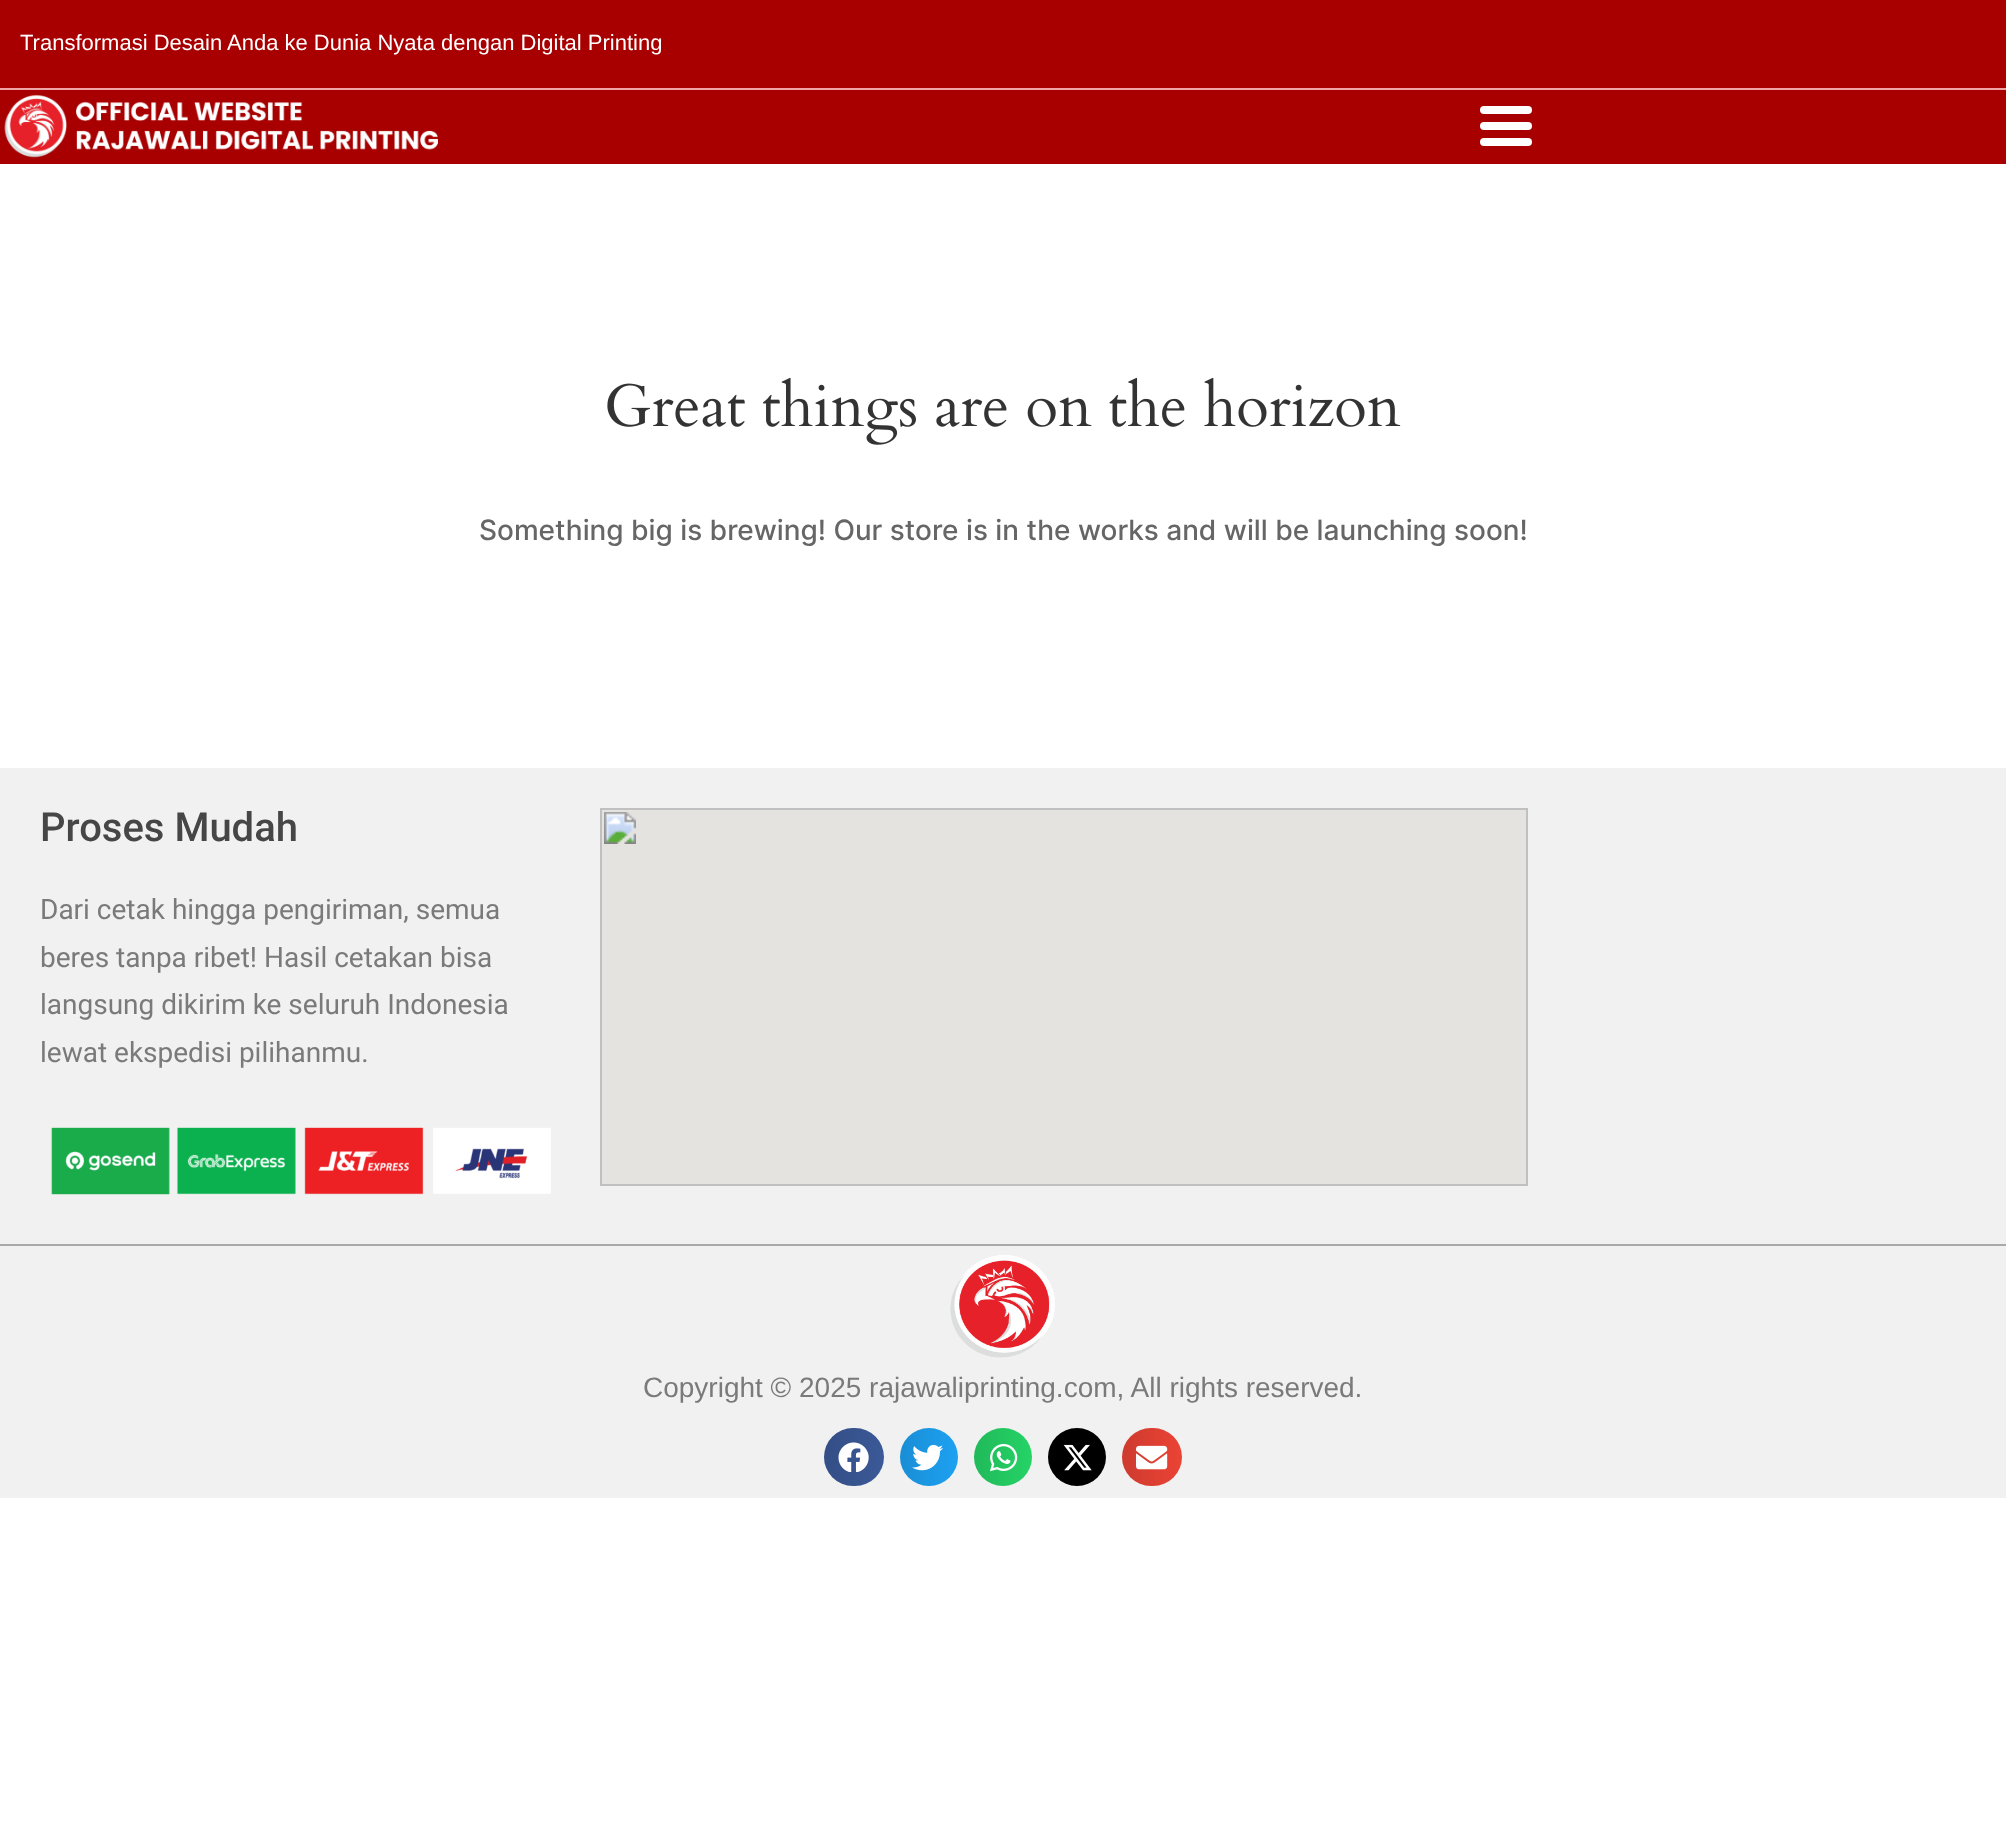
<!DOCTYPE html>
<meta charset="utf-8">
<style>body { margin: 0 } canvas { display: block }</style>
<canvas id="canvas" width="2006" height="1833"></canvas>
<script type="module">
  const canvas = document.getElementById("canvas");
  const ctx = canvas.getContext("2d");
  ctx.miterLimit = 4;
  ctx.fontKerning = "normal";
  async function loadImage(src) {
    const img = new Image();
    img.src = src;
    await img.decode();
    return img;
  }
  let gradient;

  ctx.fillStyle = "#ffffff";
  ctx.fillRect(0, 0, 2006, 1833);
  ctx.fillStyle = "#a80000";
  ctx.fillRect(0, 0, 2006, 88);
  ctx.fillStyle = "#efa5a5";
  ctx.fillRect(0, 88, 2006, 2);
  ctx.font = "22px Liberation Sans";
  ctx.fillStyle = "#ffffff";
  ctx.fillText("Transformasi Desain Anda ke Dunia Nyata dengan Digital Printing", 20, 50);
  ctx.fillStyle = "#a80000";
  ctx.fillRect(0, 90, 2006, 74);
  ctx.drawImage(await loadImage("img1.png"), 4, 94, 434, 64);
  ctx.fillStyle = "#ffffff";
  ctx.beginPath();
  ctx.roundRect(1480, 122, 52, 8, 4);
  ctx.fill();
  ctx.beginPath();
  ctx.roundRect(1480, 106, 52, 8, 4);
  ctx.fill();
  ctx.beginPath();
  ctx.roundRect(1480, 138, 52, 8, 4);
  ctx.fill();
  ctx.drawImage(await loadImage("img2.png"), 607, 377, 794, 68);
  ctx.font = "500 28px Inter";
  ctx.fillStyle = "#666666";
  ctx.fillText("Something big is brewing! Our store is in the works and will be launching soon!", 479, 540);
  ctx.fillStyle = "#f1f1f1";
  ctx.fillRect(0, 768, 2006, 476);
  ctx.font = "500 40px Roboto";
  ctx.fillStyle = "#464646";
  ctx.fillText("Proses Mudah", 40, 841);
  ctx.font = "28px Roboto";
  ctx.fillStyle = "#7a7a7a";
  ctx.fillText("Dari cetak hingga pengiriman, semua", 40, 919);
  ctx.fillText("beres tanpa ribet! Hasil cetakan bisa", 40, 967);
  ctx.fillText("langsung dikirim ke seluruh Indonesia", 40, 1014);
  ctx.fillText("lewat ekspedisi pilihanmu.", 40, 1062);
  ctx.drawImage(await loadImage("img3.png"), 51, 1127, 500, 68);
  ctx.drawImage(await loadImage("img4.png"), 600, 808, 928, 378);
  ctx.fillStyle = "#f1f1f1";
  ctx.fillRect(0, 1246, 2006, 252);
  ctx.fillStyle = "#aaaaaa";
  ctx.fillRect(0, 1244, 2006, 2);
  ctx.drawImage(await loadImage("img5.png"), 950, 1255, 105, 103);
  ctx.font = "28px Liberation Sans";
  ctx.fillStyle = "#7a7a7a";
  ctx.fillText("Copyright © 2025 rajawaliprinting.com, All rights reserved.", 643, 1397);
  ctx.fillStyle = "#3b5998";
  ctx.beginPath();
  ctx.roundRect(824, 1428, 60, 58, 29);
  ctx.fill();
  gradient = ctx.createLinearGradient(824, 1457, 884, 1457);
  gradient.addColorStop(0, "rgba(0, 0, 0, 0.12)");
  gradient.addColorStop(1, "rgba(0, 0, 0, 0)");
  ctx.fillStyle = gradient;
  ctx.beginPath();
  ctx.roundRect(824, 1428, 60, 58, 29);
  ctx.fill();
  ctx.drawImage(await loadImage("img6.png"), 838, 1442, 31, 30);
  ctx.fillStyle = "#1da1f2";
  ctx.beginPath();
  ctx.arc(929, 1457, 29, 0, Math.PI * 2);
  ctx.fill();
  gradient = ctx.createLinearGradient(900, 1457, 958, 1457);
  gradient.addColorStop(0, "rgba(0, 0, 0, 0.12)");
  gradient.addColorStop(1, "rgba(0, 0, 0, 0)");
  ctx.fillStyle = gradient;
  ctx.beginPath();
  ctx.arc(929, 1457, 29, 0, Math.PI * 2);
  ctx.fill();
  ctx.drawImage(await loadImage("img7.png"), 912, 1444, 31, 27);
  ctx.fillStyle = "#25d366";
  ctx.beginPath();
  ctx.arc(1003, 1457, 29, 0, Math.PI * 2);
  ctx.fill();
  gradient = ctx.createLinearGradient(974, 1457, 1032, 1457);
  gradient.addColorStop(0, "rgba(0, 0, 0, 0.12)");
  gradient.addColorStop(1, "rgba(0, 0, 0, 0)");
  ctx.fillStyle = gradient;
  ctx.beginPath();
  ctx.arc(1003, 1457, 29, 0, Math.PI * 2);
  ctx.fill();
  ctx.drawImage(await loadImage("img8.png"), 990, 1443, 28, 29);
  ctx.fillStyle = "#000000";
  ctx.beginPath();
  ctx.arc(1077, 1457, 29, 0, Math.PI * 2);
  ctx.fill();
  gradient = ctx.createLinearGradient(1048, 1457, 1106, 1457);
  gradient.addColorStop(0, "rgba(0, 0, 0, 0.12)");
  gradient.addColorStop(1, "rgba(0, 0, 0, 0)");
  ctx.fillStyle = gradient;
  ctx.beginPath();
  ctx.arc(1077, 1457, 29, 0, Math.PI * 2);
  ctx.fill();
  ctx.drawImage(await loadImage("img9.png"), 1063, 1444, 29, 27);
  ctx.fillStyle = "#ea4335";
  ctx.beginPath();
  ctx.roundRect(1122, 1428, 60, 58, 29);
  ctx.fill();
  gradient = ctx.createLinearGradient(1122, 1457, 1182, 1457);
  gradient.addColorStop(0, "rgba(0, 0, 0, 0.12)");
  gradient.addColorStop(1, "rgba(0, 0, 0, 0)");
  ctx.fillStyle = gradient;
  ctx.beginPath();
  ctx.roundRect(1122, 1428, 60, 58, 29);
  ctx.fill();
  ctx.drawImage(await loadImage("img10.png"), 1136, 1445, 32, 25);
</script>
